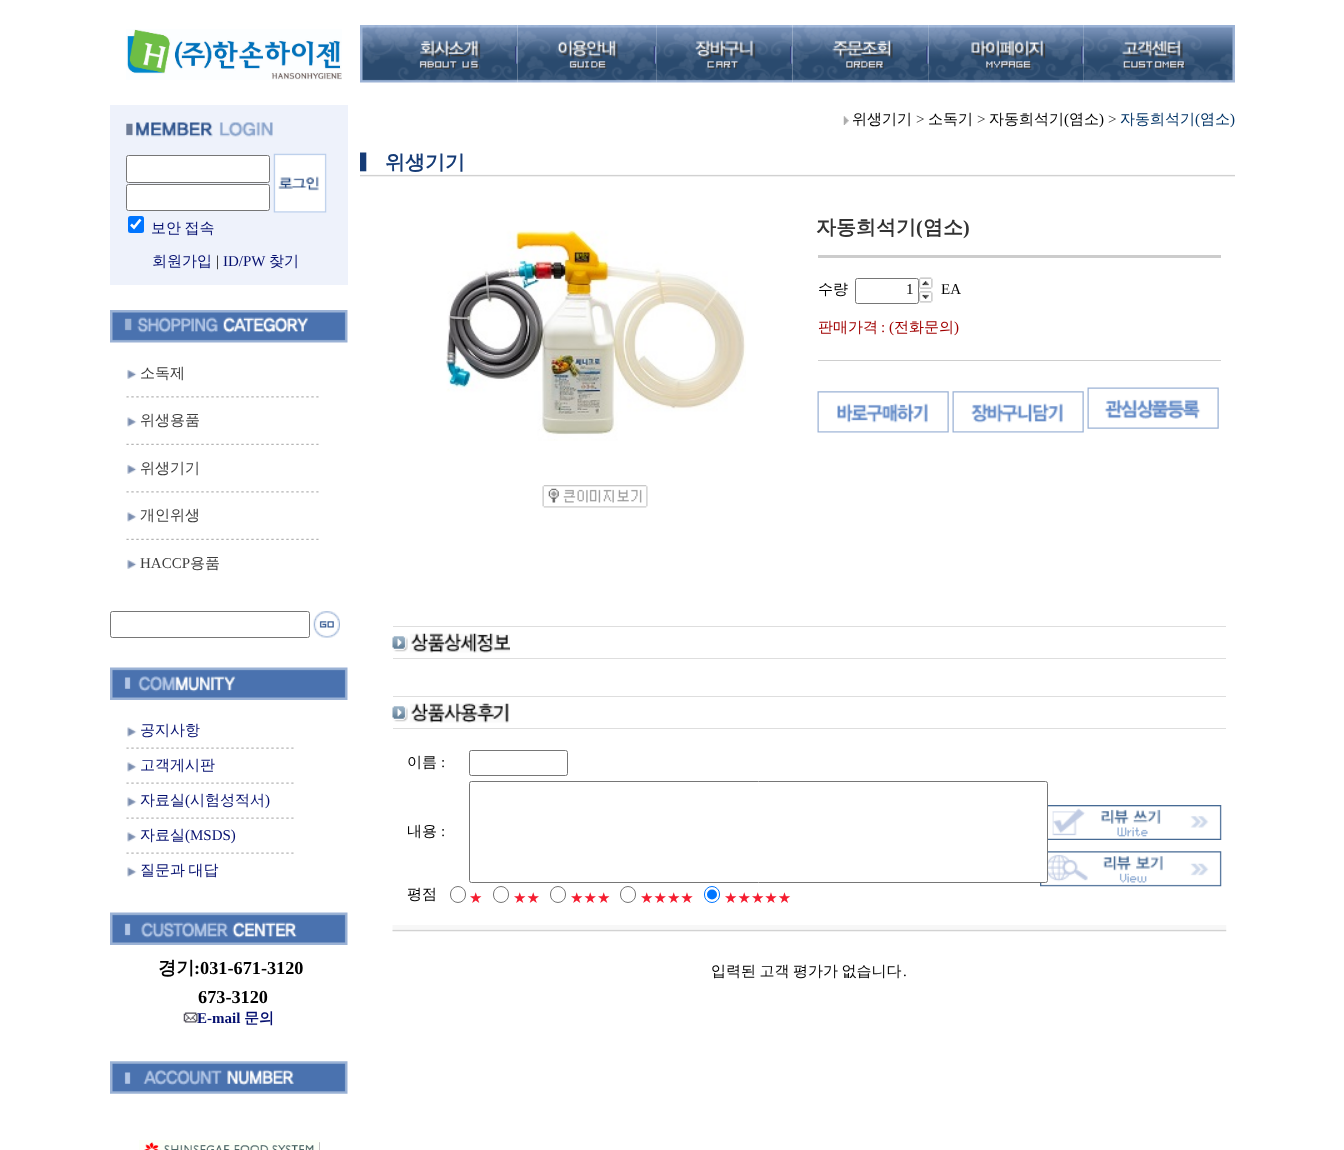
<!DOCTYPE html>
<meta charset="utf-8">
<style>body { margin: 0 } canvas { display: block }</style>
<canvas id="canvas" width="1344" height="1150"></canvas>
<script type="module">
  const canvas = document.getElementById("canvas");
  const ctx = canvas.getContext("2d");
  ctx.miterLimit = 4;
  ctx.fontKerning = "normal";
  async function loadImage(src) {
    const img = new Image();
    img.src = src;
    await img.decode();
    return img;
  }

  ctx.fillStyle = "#ffffff";
  ctx.fillRect(0, 0, 1344, 1150);
  ctx.drawImage(await loadImage("img1.png"), 126, 29, 216, 51);
  ctx.drawImage(await loadImage("img2.png"), 360, 25, 158, 58);
  ctx.drawImage(await loadImage("img3.png"), 517, 25, 140, 58);
  ctx.drawImage(await loadImage("img4.png"), 656, 25, 137, 58);
  ctx.drawImage(await loadImage("img5.png"), 792, 25, 137, 58);
  ctx.drawImage(await loadImage("img6.png"), 928, 25, 156, 58);
  ctx.drawImage(await loadImage("img7.png"), 1083, 25, 152, 58);
  ctx.fillStyle = "#eef2fb";
  ctx.fillRect(110, 105, 238, 180);
  ctx.drawImage(await loadImage("img8.png"), 126, 122, 147, 15);
  ctx.fillStyle = "#ffffff";
  ctx.beginPath();
  ctx.roundRect(126.5, 155.5, 143, 27, 2);
  ctx.fill();
  ctx.strokeStyle = "#767676";
  ctx.stroke();
  ctx.drawImage(await loadImage("img9.png"), 273, 153, 54, 60);
  ctx.beginPath();
  ctx.roundRect(126.5, 184.5, 143, 26, 2);
  ctx.fill();
  ctx.stroke();
  ctx.fillStyle = "#0075ff";
  ctx.beginPath();
  ctx.roundRect(128, 216, 16, 17, 2.5);
  ctx.fill();
  ctx.beginPath();
  ctx.moveTo(131, 224.5);
  ctx.lineTo(134, 227.5);
  ctx.lineTo(140.5, 219.5);
  ctx.strokeStyle = "#ffffff";
  ctx.lineWidth = 2.6;
  ctx.stroke();
  ctx.wordSpacing = "-1px";
  ctx.font = "500 15px WenQuanYi Zen Hei";
  ctx.fillStyle = "#040f6f";
  ctx.fillText("보안 접속", 151, 233);
  ctx.wordSpacing = "0px";
  ctx.fillText("회원가입", 152, 266);
  ctx.font = "15px Liberation Serif";
  ctx.fillStyle = "#000000";
  ctx.fillText("|", 216, 266);
  ctx.fillStyle = "#040f6f";
  ctx.fillText("ID/PW", 223, 266);
  ctx.font = "500 15px WenQuanYi Zen Hei";
  ctx.fillText("찾기", 269, 266);
  ctx.drawImage(await loadImage("img10.png"), 110, 310, 238, 33);
  ctx.drawImage(await loadImage("img11.png"), 127, 369, 10, 10);
  ctx.fillStyle = "#3d3d3d";
  ctx.fillText("소독제", 140, 378);
  ctx.drawImage(await loadImage("img12.png"), 126, 396, 193, 2);
  ctx.drawImage(await loadImage("img13.png"), 127, 417, 10, 10);
  ctx.fillText("위생용품", 140, 425);
  ctx.drawImage(await loadImage("img14.png"), 126, 443, 193, 2);
  ctx.drawImage(await loadImage("img11.png"), 127, 464, 10, 10);
  ctx.fillText("위생기기", 140, 473);
  ctx.drawImage(await loadImage("img12.png"), 126, 491, 193, 2);
  ctx.drawImage(await loadImage("img13.png"), 127, 512, 10, 10);
  ctx.fillText("개인위생", 140, 520);
  ctx.drawImage(await loadImage("img14.png"), 126, 538, 193, 2);
  ctx.drawImage(await loadImage("img11.png"), 127, 559, 10, 10);
  ctx.font = "15px Liberation Serif";
  ctx.fillText("HACCP", 140, 568);
  ctx.font = "500 15px WenQuanYi Zen Hei";
  ctx.fillText("용품", 190, 568);
  ctx.beginPath();
  ctx.roundRect(110.5, 611.5, 199, 26, 2);
  ctx.strokeStyle = "#767676";
  ctx.lineWidth = 1;
  ctx.stroke();
  ctx.drawImage(await loadImage("img15.png"), 313, 611, 27, 27);
  ctx.drawImage(await loadImage("img16.png"), 110, 667, 238, 33);
  ctx.drawImage(await loadImage("img13.png"), 127, 727, 10, 10);
  ctx.fillStyle = "#040f6f";
  ctx.fillText("공지사항", 140, 735);
  ctx.drawImage(await loadImage("img17.png"), 126, 747, 168, 2);
  ctx.drawImage(await loadImage("img13.png"), 127, 762, 10, 10);
  ctx.fillText("고객게시판", 140, 770);
  ctx.drawImage(await loadImage("img17.png"), 126, 782, 168, 2);
  ctx.drawImage(await loadImage("img13.png"), 127, 797, 10, 10);
  ctx.fillText("자료실", 140, 805);
  ctx.font = "15px Liberation Serif";
  ctx.fillText("(", 185, 805);
  ctx.font = "500 15px WenQuanYi Zen Hei";
  ctx.fillText("시험성적서", 190, 805);
  ctx.font = "15px Liberation Serif";
  ctx.fillText(")", 265, 805);
  ctx.drawImage(await loadImage("img17.png"), 126, 817, 168, 2);
  ctx.drawImage(await loadImage("img13.png"), 127, 832, 10, 10);
  ctx.font = "500 15px WenQuanYi Zen Hei";
  ctx.fillText("자료실", 140, 840);
  ctx.font = "15px Liberation Serif";
  ctx.fillText("(MSDS)", 185, 840);
  ctx.drawImage(await loadImage("img17.png"), 126, 852, 168, 2);
  ctx.drawImage(await loadImage("img13.png"), 127, 867, 10, 10);
  ctx.wordSpacing = "-1px";
  ctx.font = "500 15px WenQuanYi Zen Hei";
  ctx.fillText("질문과 대답", 140, 875);
  ctx.drawImage(await loadImage("img18.png"), 110, 912, 238, 33);
  ctx.wordSpacing = "0px";
  ctx.font = "bold 18.25px WenQuanYi Zen Hei";
  ctx.fillStyle = "#000000";
  ctx.fillText("경기", 158, 974);
  ctx.font = "bold 18.25px Liberation Serif";
  ctx.fillText(":031-671-3120", 194, 974);
  ctx.fillText("673-3120", 198, 1003);
  ctx.drawImage(await loadImage("img19.png"), 183, 1012, 15, 11);
  ctx.font = "bold 15px Liberation Serif";
  ctx.fillStyle = "#040f6f";
  ctx.fillText("E-mail", 197, 1023);
  ctx.font = "bold 15px WenQuanYi Zen Hei";
  ctx.fillText("문의", 244, 1023);
  ctx.drawImage(await loadImage("img20.png"), 110, 1061, 238, 33);
  ctx.drawImage(await loadImage("img21.png"), 139, 1140, 181, 10);
  ctx.drawImage(await loadImage("img22.png"), 843, 116, 6, 9);
  ctx.font = "500 15px WenQuanYi Zen Hei";
  ctx.fillStyle = "#000000";
  ctx.fillText("위생기기", 852, 124);
  ctx.font = "15px Liberation Serif";
  ctx.fillStyle = "#333333";
  ctx.fillText(">", 916, 124);
  ctx.font = "500 15px WenQuanYi Zen Hei";
  ctx.fillStyle = "#000000";
  ctx.fillText("소독기", 928, 124);
  ctx.font = "15px Liberation Serif";
  ctx.fillStyle = "#333333";
  ctx.fillText(">", 977, 124);
  ctx.font = "500 15px WenQuanYi Zen Hei";
  ctx.fillStyle = "#000000";
  ctx.fillText("자동희석기", 989, 124);
  ctx.font = "15px Liberation Serif";
  ctx.fillText("(", 1064, 124);
  ctx.font = "500 15px WenQuanYi Zen Hei";
  ctx.fillText("염소", 1069, 124);
  ctx.font = "15px Liberation Serif";
  ctx.fillText(")", 1099, 124);
  ctx.fillStyle = "#333333";
  ctx.fillText(">", 1108, 124);
  ctx.font = "500 15px WenQuanYi Zen Hei";
  ctx.fillStyle = "#003366";
  ctx.fillText("자동희석기", 1120, 124);
  ctx.font = "15px Liberation Serif";
  ctx.fillText("(", 1195, 124);
  ctx.font = "500 15px WenQuanYi Zen Hei";
  ctx.fillText("염소", 1200, 124);
  ctx.font = "15px Liberation Serif";
  ctx.fillText(")", 1230, 124);
  ctx.drawImage(await loadImage("img23.png"), 360, 152, 875, 25);
  ctx.font = "bold 20px WenQuanYi Zen Hei";
  ctx.fillStyle = "#153b76";
  ctx.fillText("위생기기", 385, 169);
  ctx.drawImage(await loadImage("img24.png"), 446, 230, 300, 211);
  ctx.drawImage(await loadImage("img25.png"), 542, 485, 106, 23);
  ctx.fillStyle = "#333333";
  ctx.fillText("자동희석기", 816, 234);
  ctx.font = "bold 20px Liberation Serif";
  ctx.fillText("(", 916, 234);
  ctx.font = "bold 20px WenQuanYi Zen Hei";
  ctx.fillText("염소", 923, 234);
  ctx.font = "bold 20px Liberation Serif";
  ctx.fillText(")", 963, 234);
  ctx.fillStyle = "#cccccc";
  ctx.fillRect(818, 255, 403, 3);
  ctx.font = "500 15px WenQuanYi Zen Hei";
  ctx.fillStyle = "#000000";
  ctx.fillText("수량", 818, 294);
  ctx.beginPath();
  ctx.roundRect(855.5, 278.5, 63, 25, 2);
  ctx.stroke();
  ctx.font = "15px Liberation Serif";
  ctx.fillText("1", 906, 294);
  ctx.drawImage(await loadImage("img26.png"), 918, 277, 15, 12);
  ctx.fillText("EA", 941, 294);
  ctx.drawImage(await loadImage("img27.png"), 918, 291, 15, 12);
  ctx.font = "500 15px WenQuanYi Zen Hei";
  ctx.fillStyle = "#a00000";
  ctx.fillText("판매가격", 818, 332);
  ctx.font = "15px Liberation Serif";
  ctx.fillText(": (", 881, 332);
  ctx.font = "500 15px WenQuanYi Zen Hei";
  ctx.fillText("전화문의", 894, 332);
  ctx.font = "15px Liberation Serif";
  ctx.fillText(")", 954, 332);
  ctx.fillStyle = "#cecece";
  ctx.fillRect(818, 360, 403, 1);
  ctx.drawImage(await loadImage("img28.png"), 817, 391, 132, 42);
  ctx.drawImage(await loadImage("img29.png"), 952, 391, 132, 42);
  ctx.drawImage(await loadImage("img30.png"), 1087, 387, 132, 42);
  ctx.fillStyle = "#dedede";
  ctx.fillRect(393, 626, 833, 1);
  ctx.drawImage(await loadImage("img31.png"), 392, 633, 118, 20);
  ctx.fillRect(393, 658, 833, 1);
  ctx.fillRect(393, 696, 833, 1);
  ctx.drawImage(await loadImage("img32.png"), 392, 703, 117, 20);
  ctx.fillRect(393, 728, 833, 1);
  ctx.font = "500 15px WenQuanYi Zen Hei";
  ctx.fillStyle = "#000000";
  ctx.fillText("이름", 407, 767);
  ctx.font = "15px Liberation Serif";
  ctx.fillText(":", 441, 767);
  ctx.beginPath();
  ctx.roundRect(469.5, 750.5, 98, 25, 2);
  ctx.stroke();
  ctx.font = "500 15px WenQuanYi Zen Hei";
  ctx.fillText("내용", 407, 836);
  ctx.font = "15px Liberation Serif";
  ctx.fillText(":", 441, 836);
  ctx.drawImage(await loadImage("img34.png"), 1040, 851, 182, 36);
  ctx.fillStyle = "#ffffff";
  ctx.beginPath();
  ctx.roundRect(469.5, 781.5, 578, 101, 2);
  ctx.fill();
  ctx.stroke();
  ctx.font = "500 15px WenQuanYi Zen Hei";
  ctx.fillStyle = "#000000";
  ctx.fillText("평점", 407, 899);
  ctx.beginPath();
  ctx.roundRect(450.5, 886.5, 15, 16, 7.5);
  ctx.stroke();
  ctx.font = "15px DejaVu Sans";
  ctx.fillStyle = "#f51d30";
  ctx.fillText("★", 469, 903);
  ctx.beginPath();
  ctx.roundRect(493.5, 886.5, 15, 16, 7.5);
  ctx.stroke();
  ctx.fillText("★★", 513, 903);
  ctx.beginPath();
  ctx.roundRect(550.5, 886.5, 15, 16, 7.5);
  ctx.stroke();
  ctx.fillText("★★★", 570, 903);
  ctx.beginPath();
  ctx.roundRect(620.5, 886.5, 15, 16, 7.5);
  ctx.stroke();
  ctx.fillText("★★★★", 640, 903);
  ctx.beginPath();
  ctx.roundRect(704.5, 886.5, 15, 16, 7.5);
  ctx.strokeStyle = "#0075ff";
  ctx.stroke();
  ctx.fillStyle = "#0075ff";
  ctx.beginPath();
  ctx.arc(712, 894.5, 5, 0, Math.PI * 2);
  ctx.fill();
  ctx.fillStyle = "#f51d30";
  ctx.fillText("★★★★★", 724, 903);
  ctx.drawImage(await loadImage("img33.png"), 1048, 805, 174, 35);
  ctx.drawImage(await loadImage("img35.png"), 392, 925, 835, 7);
  ctx.wordSpacing = "-1px";
  ctx.font = "500 15px WenQuanYi Zen Hei";
  ctx.fillStyle = "#000000";
  ctx.fillText("입력된 고객 평가가 없습니다", 711, 976);
  ctx.wordSpacing = "0px";
  ctx.font = "15px Liberation Serif";
  ctx.fillText(".", 903, 976);
</script>
